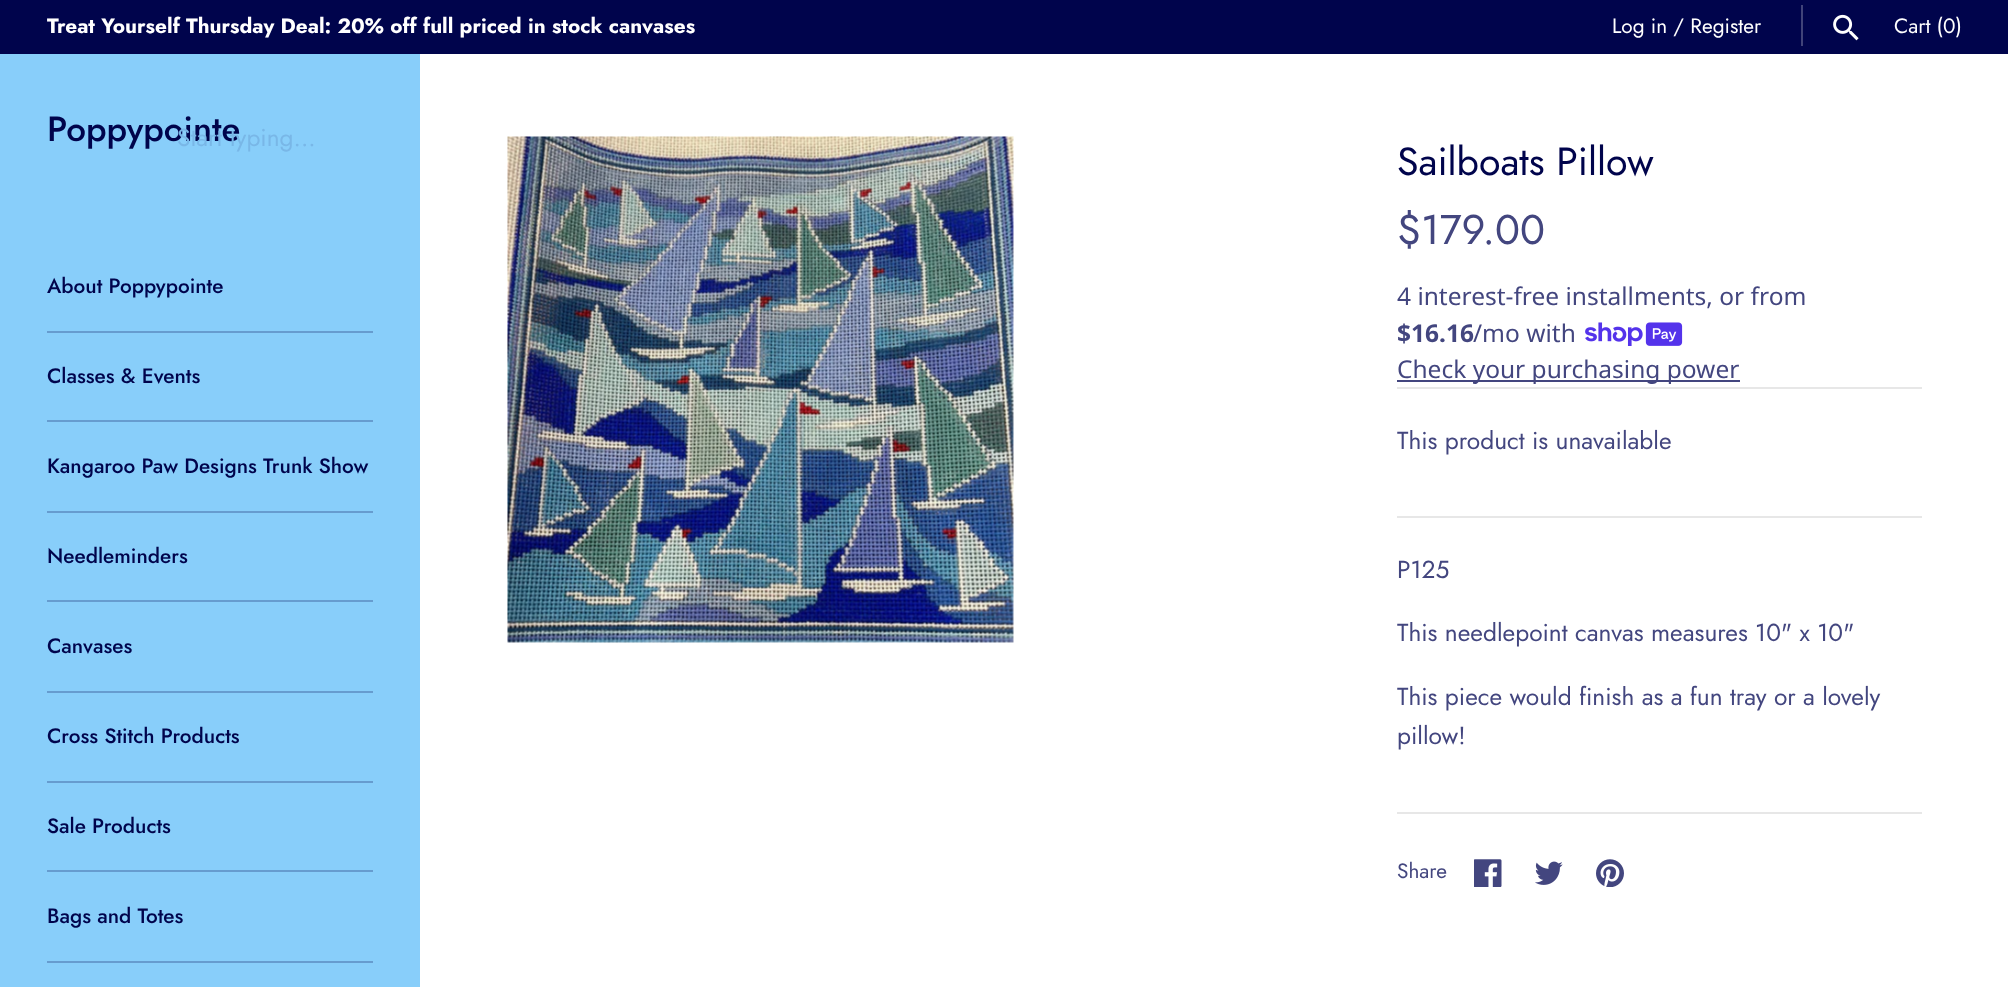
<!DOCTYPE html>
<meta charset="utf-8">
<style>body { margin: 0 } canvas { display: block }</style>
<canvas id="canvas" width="2008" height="987"></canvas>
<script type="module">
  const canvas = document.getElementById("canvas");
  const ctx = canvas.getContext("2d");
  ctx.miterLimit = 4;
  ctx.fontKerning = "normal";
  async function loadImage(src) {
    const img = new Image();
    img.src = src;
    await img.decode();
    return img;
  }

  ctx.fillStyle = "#ffffff";
  ctx.fillRect(0, 0, 2008, 987);
  ctx.fillStyle = "#00044c";
  ctx.fillRect(0, 0, 2008, 54);
  ctx.font = "bold 20.8px Jost";
  ctx.fillStyle = "#ffffff";
  ctx.fillText("Treat Yourself Thursday Deal: 20% off full priced in stock canvases", 47, 33);
  ctx.font = "20.8px Jost";
  ctx.fillText("Log in / Register", 1612, 33);
  ctx.fillStyle = "#404379";
  ctx.fillRect(1801, 5, 2, 41);
  ctx.drawImage(await loadImage("img1.png"), 1833, 14, 26, 27);
  ctx.fillStyle = "#ffffff";
  ctx.fillText("Cart (0)", 1894, 33);
  ctx.fillStyle = "#88cefa";
  ctx.fillRect(0, 54, 420, 933);
  ctx.font = "500 35px Jost";
  ctx.fillStyle = "#00044c";
  ctx.fillText("Poppypointe", 47, 141);
  ctx.font = "24.5px Jost";
  ctx.fillStyle = "#79b7e7";
  ctx.fillText("Start typing...", 177, 146);
  ctx.fillStyle = "#669ccf";
  ctx.fillRect(47, 331, 326, 2);
  ctx.font = "500 20.8px Jost";
  ctx.fillStyle = "#00044c";
  ctx.fillText("About Poppypointe", 47, 293);
  ctx.fillStyle = "#669ccf";
  ctx.fillRect(47, 420, 326, 2);
  ctx.fillStyle = "#00044c";
  ctx.fillText("Classes & Events", 47, 383);
  ctx.fillStyle = "#669ccf";
  ctx.fillRect(47, 511, 326, 2);
  ctx.fillStyle = "#00044c";
  ctx.fillText("Kangaroo Paw Designs Trunk Show", 47, 473);
  ctx.fillStyle = "#669ccf";
  ctx.fillRect(47, 600, 326, 2);
  ctx.fillStyle = "#00044c";
  ctx.fillText("Needleminders", 47, 563);
  ctx.fillStyle = "#669ccf";
  ctx.fillRect(47, 691, 326, 2);
  ctx.fillStyle = "#00044c";
  ctx.fillText("Canvases", 47, 653);
  ctx.fillStyle = "#669ccf";
  ctx.fillRect(47, 781, 326, 2);
  ctx.fillStyle = "#00044c";
  ctx.fillText("Cross Stitch Products", 47, 743);
  ctx.fillStyle = "#669ccf";
  ctx.fillRect(47, 870, 326, 2);
  ctx.fillStyle = "#00044c";
  ctx.fillText("Sale Products", 47, 833);
  ctx.fillStyle = "#669ccf";
  ctx.fillRect(47, 961, 326, 2);
  ctx.fillStyle = "#00044c";
  ctx.fillText("Bags and Totes", 47, 923);
  ctx.drawImage(await loadImage("img2.png"), 507, 136, 507, 507);
  ctx.font = "39.25px Jost";
  ctx.fillText("Sailboats Pillow", 1397, 175);
  ctx.font = "41.5px Jost";
  ctx.fillStyle = "#43467f";
  ctx.fillText("$179.00", 1397, 244);
  ctx.font = "24.5px Noto Sans";
  ctx.fillText("4 interest-free installments, or from", 1397, 305);
  ctx.font = "bold 24.5px Noto Sans";
  ctx.fillText("$16.16", 1397, 342);
  ctx.font = "24.5px Noto Sans";
  ctx.fillText("/mo with", 1473, 342);
  ctx.drawImage(await loadImage("img3.png"), 1585, 322, 98, 24);
  ctx.fillRect(1397, 380, 343, 2);
  ctx.fillText("Check your purchasing power", 1397, 378);
  ctx.fillStyle = "#e7e7e7";
  ctx.fillRect(1397, 387, 525, 2);
  ctx.font = "24.5px Jost";
  ctx.fillStyle = "#43467f";
  ctx.fillText("This product is unavailable", 1397, 449);
  ctx.fillStyle = "#e7e7e7";
  ctx.fillRect(1397, 516, 525, 2);
  ctx.fillStyle = "#43467f";
  ctx.fillText("P125", 1397, 578);
  ctx.fillText("This needlepoint canvas measures 10\" x 10\"", 1397, 641);
  ctx.fillText("This piece would finish as a fun tray or a lovely", 1397, 705);
  ctx.fillText("pillow!", 1397, 744);
  ctx.fillStyle = "#e7e7e7";
  ctx.fillRect(1397, 812, 525, 2);
  ctx.font = "20.8px Jost";
  ctx.fillStyle = "#43467f";
  ctx.fillText("Share", 1397, 878);
  ctx.drawImage(await loadImage("img4.png"), 1474, 859, 28, 28);
  ctx.drawImage(await loadImage("img5.png"), 1535, 861, 28, 24);
  ctx.drawImage(await loadImage("img6.png"), 1596, 859, 28, 28);
</script>
